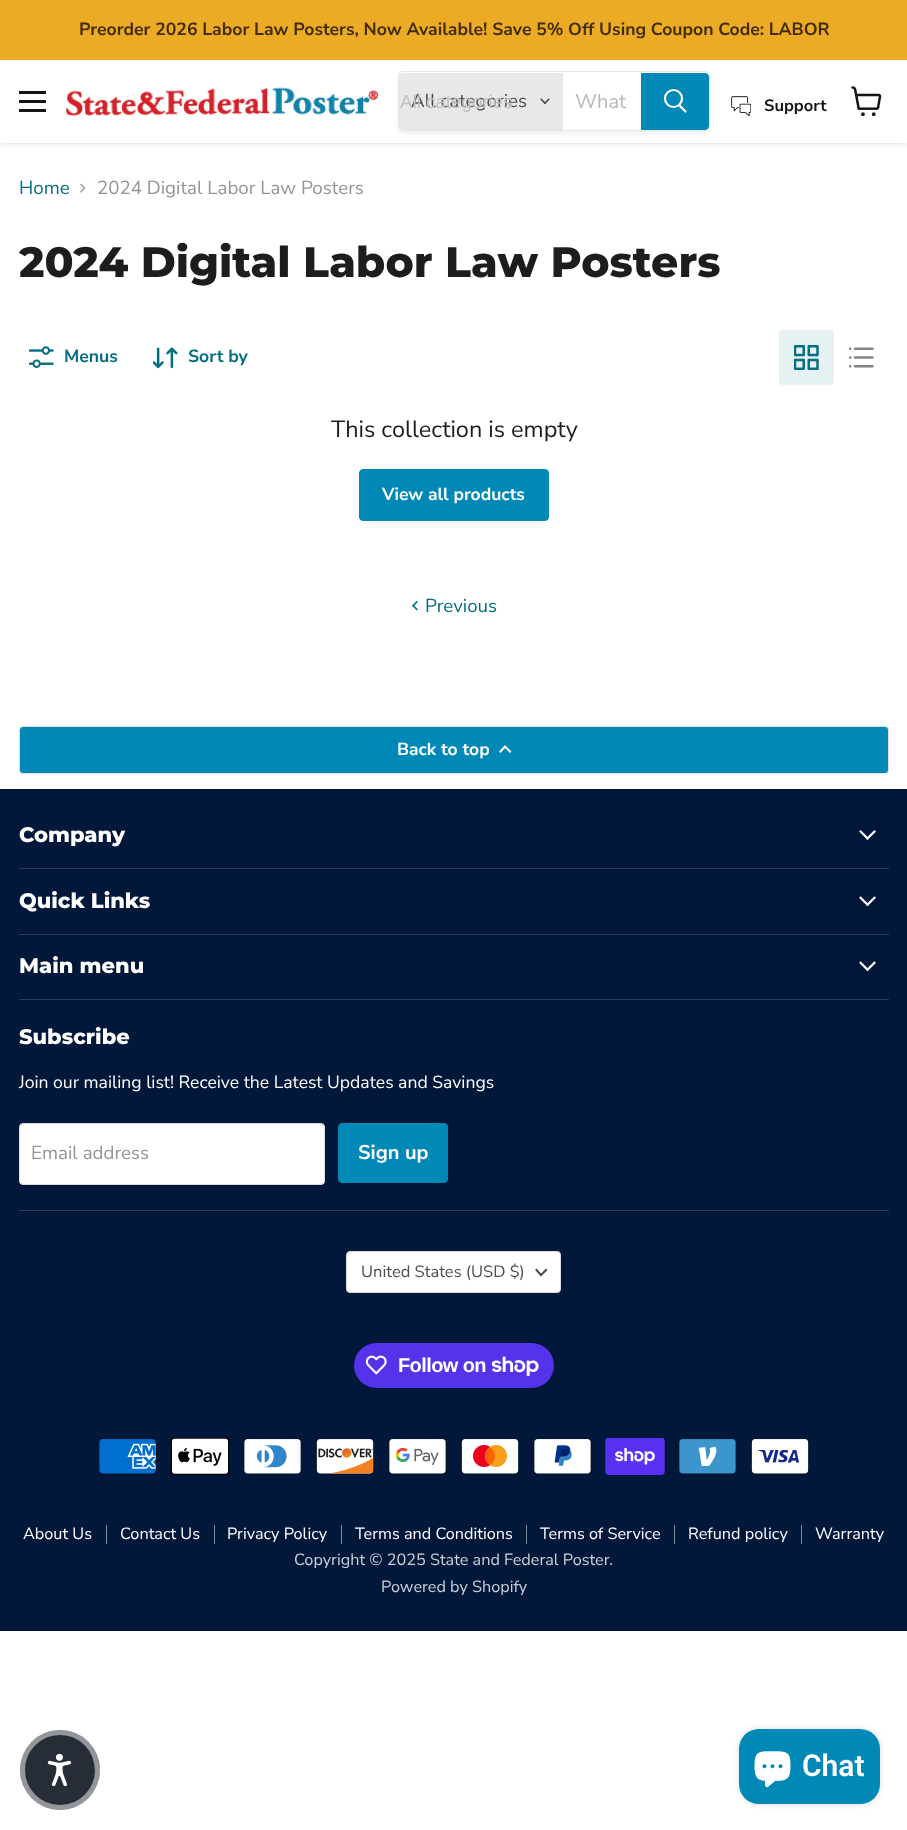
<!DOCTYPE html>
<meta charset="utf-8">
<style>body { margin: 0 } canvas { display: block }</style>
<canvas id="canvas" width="907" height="1830"></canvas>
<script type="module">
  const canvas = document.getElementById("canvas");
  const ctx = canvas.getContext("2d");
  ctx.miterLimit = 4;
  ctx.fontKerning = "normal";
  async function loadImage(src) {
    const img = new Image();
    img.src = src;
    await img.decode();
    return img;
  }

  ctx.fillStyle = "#ffffff";
  ctx.fillRect(0, 0, 907, 1830);
  ctx.fillStyle = "rgba(128, 128, 128, 0.25)";
  ctx.filter = "blur(2.5px)";
  ctx.beginPath();
  ctx.rect(0, 61, 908, 83);
  ctx.fill();
  ctx.filter = "none";
  ctx.fillStyle = "#ecab25";
  ctx.fillRect(0, 0, 907, 60);
  ctx.font = "bold 17.6px Nunito Sans";
  ctx.fillStyle = "#422d06";
  ctx.fillText("Preorder 2026 Labor Law Posters, Now Available! Save 5% Off Using Coupon Code: LABOR", 79, 35);
  ctx.fillStyle = "#ffffff";
  ctx.fillRect(0, 60, 907, 83);
  ctx.fillStyle = "#151515";
  ctx.fillRect(19, 91, 27, 3);
  ctx.fillRect(19, 100, 27, 3);
  ctx.fillRect(19, 109, 27, 3);
  ctx.drawImage(await loadImage("img1.png"), 66, 87, 313, 30);
  ctx.save();
  ctx.beginPath();
  ctx.moveTo(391, 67);
  ctx.lineTo(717, 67);
  ctx.lineTo(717, 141);
  ctx.lineTo(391, 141);
  ctx.closePath();
  ctx.moveTo(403, 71);
  ctx.lineTo(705, 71);
  ctx.bezierCurveTo(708, 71, 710, 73, 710, 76);
  ctx.lineTo(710, 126);
  ctx.bezierCurveTo(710, 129, 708, 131, 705, 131);
  ctx.lineTo(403, 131);
  ctx.bezierCurveTo(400, 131, 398, 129, 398, 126);
  ctx.lineTo(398, 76);
  ctx.bezierCurveTo(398, 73, 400, 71, 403, 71);
  ctx.closePath();
  ctx.clip("evenodd");
  ctx.fillStyle = "rgba(128, 128, 128, 0.11)";
  ctx.filter = "blur(2px)";
  ctx.beginPath();
  ctx.roundRect(398, 74, 312, 60, 5);
  ctx.fill();
  ctx.filter = "none";
  ctx.restore();
  ctx.beginPath();
  ctx.roundRect(398.5, 71.5, 311, 59, 4.5);
  ctx.strokeStyle = "rgba(128, 128, 128, 0.2)";
  ctx.stroke();
  ctx.fillStyle = "#e8e8e8";
  ctx.beginPath();
  ctx.roundRect(399, 73, 164, 57, [4, 0, 0, 4]);
  ctx.fill();
  ctx.font = "18.75px Nunito Sans";
  ctx.fillStyle = "#4d4d4d";
  ctx.fillText("All categories", 411, 107);
  ctx.font = "18.75px Liberation Sans";
  ctx.fillStyle = "#c0c0c0";
  ctx.fillText("All categories", 400, 108);
  ctx.drawImage(await loadImage("img2.png"), 540, 98, 10, 7);
  ctx.font = "20px Nunito Sans";
  ctx.fillStyle = "#b8b8b8";
  ctx.fillText("What", 575, 108);
  ctx.fillStyle = "#0089b6";
  ctx.beginPath();
  ctx.roundRect(641.5, 73.5, 67, 56, [0, 3.5, 3.5, 0]);
  ctx.fill();
  ctx.strokeStyle = "#0089b6";
  ctx.stroke();
  ctx.beginPath();
  ctx.moveTo(685.5, 111.5);
  ctx.lineTo(679.5, 105.5);
  ctx.strokeStyle = "#ffffff";
  ctx.lineWidth = 2.2;
  ctx.lineCap = "round";
  ctx.stroke();
  ctx.beginPath();
  ctx.arc(673.5, 98.5, 8.5, 0, Math.PI * 2);
  ctx.stroke();
  ctx.drawImage(await loadImage("img3.png"), 731, 96, 20, 20);
  ctx.font = "bold 16.5px Nunito Sans";
  ctx.fillStyle = "#151515";
  ctx.fillText("Support", 764, 111);
  ctx.drawImage(await loadImage("img4.png"), 851, 86, 31, 30);
  ctx.font = "18.75px Nunito Sans";
  ctx.fillStyle = "#046e82";
  ctx.fillText("Home", 19, 194);
  ctx.drawImage(await loadImage("img5.png"), 80, 183, 6, 10);
  ctx.fillStyle = "#949494";
  ctx.fillText("2024 Digital Labor Law Posters", 97, 194);
  ctx.font = "800 42.5px Montserrat";
  ctx.fillStyle = "#1d1d1d";
  ctx.fillText("2024 Digital Labor Law Posters", 19, 277);
  ctx.drawImage(await loadImage("img6.png"), 29, 346, 25, 22);
  ctx.font = "bold 17.6px Nunito Sans";
  ctx.fillStyle = "#046e82";
  ctx.fillText("Menus", 64, 362);
  ctx.drawImage(await loadImage("img7.png"), 153, 347, 25, 22);
  ctx.fillText("Sort by", 188, 362);
  ctx.fillStyle = "#e6f1f3";
  ctx.beginPath();
  ctx.roundRect(779, 330, 55, 55, 4);
  ctx.fill();
  ctx.drawImage(await loadImage("img8.png"), 794, 345, 25, 25);
  ctx.drawImage(await loadImage("img9.png"), 849, 347, 25, 21);
  ctx.font = "23.5px Nunito Sans";
  ctx.fillStyle = "#1d1d1d";
  ctx.fillText("This collection is empty", 331, 437);
  ctx.fillStyle = "#0089b6";
  ctx.beginPath();
  ctx.roundRect(359.5, 469.5, 189, 51, 3.5);
  ctx.fill();
  ctx.strokeStyle = "#0089b6";
  ctx.lineWidth = 1;
  ctx.stroke();
  ctx.font = "bold 17.5px Nunito Sans";
  ctx.fillStyle = "#ffffff";
  ctx.fillText("View all products", 382, 500);
  ctx.drawImage(await loadImage("img10.png"), 412, 601, 6, 10);
  ctx.font = "18.75px Nunito Sans";
  ctx.fillStyle = "#046e82";
  ctx.fillText("Previous", 425, 612);
  ctx.fillStyle = "#0089b6";
  ctx.beginPath();
  ctx.roundRect(19.5, 726.5, 869, 47, 3.5);
  ctx.fill();
  ctx.strokeStyle = "#dddddd";
  ctx.stroke();
  ctx.font = "bold 17.5px Nunito Sans";
  ctx.fillStyle = "#ffffff";
  ctx.fillText("Back to top", 397, 755);
  ctx.beginPath();
  ctx.moveTo(505, 746.5);
  ctx.lineTo(500.5, 751.5);
  ctx.moveTo(505, 746.5);
  ctx.lineTo(510, 751.5);
  ctx.strokeStyle = "#ffffff";
  ctx.lineWidth = 2;
  ctx.lineCap = "square";
  ctx.stroke();
  ctx.fillStyle = "#01183b";
  ctx.fillRect(0, 789, 907, 842);
  ctx.fillStyle = "#273b58";
  ctx.fillRect(19, 868, 870, 1);
  ctx.font = "800 21px Montserrat";
  ctx.fillStyle = "#ffffff";
  ctx.fillText("Company", 19, 842);
  ctx.drawImage(await loadImage("img11.png"), 859, 830, 17, 10);
  ctx.fillStyle = "#273b58";
  ctx.fillRect(19, 934, 870, 1);
  ctx.fillStyle = "#ffffff";
  ctx.fillText("Quick Links", 19, 908);
  ctx.drawImage(await loadImage("img12.png"), 859, 896, 17, 10);
  ctx.fillStyle = "#273b58";
  ctx.fillRect(19, 999, 870, 1);
  ctx.fillStyle = "#ffffff";
  ctx.fillText("Main menu", 19, 973);
  ctx.drawImage(await loadImage("img12.png"), 859, 961, 17, 10);
  ctx.fillStyle = "#273b58";
  ctx.fillRect(19, 1210, 870, 1);
  ctx.fillStyle = "#ffffff";
  ctx.fillText("Subscribe", 19, 1044);
  ctx.font = "17.6px Nunito Sans";
  ctx.fillText("Join our mailing list! Receive the Latest Updates and Savings", 19, 1088);
  ctx.beginPath();
  ctx.roundRect(19.5, 1123.5, 305, 61, 3.5);
  ctx.fill();
  ctx.strokeStyle = "#dddddd";
  ctx.lineWidth = 1;
  ctx.stroke();
  ctx.font = "18.75px Nunito Sans";
  ctx.fillStyle = "#949494";
  ctx.fillText("Email address", 31, 1159);
  ctx.fillStyle = "#0089b6";
  ctx.beginPath();
  ctx.roundRect(338.5, 1123.5, 109, 59, 3.5);
  ctx.fill();
  ctx.strokeStyle = "#0089b6";
  ctx.stroke();
  ctx.font = "bold 20px Nunito Sans";
  ctx.fillStyle = "#ffffff";
  ctx.fillText("Sign up", 358, 1159);
  ctx.beginPath();
  ctx.roundRect(346.5, 1251.5, 214, 41, 3.5);
  ctx.fill();
  ctx.strokeStyle = "#dddddd";
  ctx.stroke();
  ctx.font = "16.5px Nunito Sans";
  ctx.fillStyle = "#4d4d4d";
  ctx.fillText("United States (USD $)", 361, 1277);
  ctx.beginPath();
  ctx.moveTo(541, 1275);
  ctx.lineTo(546, 1270);
  ctx.moveTo(541, 1275);
  ctx.lineTo(536.5, 1270);
  ctx.strokeStyle = "#4d4d4d";
  ctx.lineWidth = 2;
  ctx.stroke();
  ctx.fillStyle = "#5433eb";
  ctx.beginPath();
  ctx.roundRect(354, 1343, 200, 45, 22.5);
  ctx.fill();
  ctx.drawImage(await loadImage("img13.png"), 365, 1355, 22, 20);
  ctx.letterSpacing = "-0.6px";
  ctx.font = "bold 20px Liberation Sans";
  ctx.fillStyle = "#ffffff";
  ctx.fillText("Follow on", 398, 1372);
  ctx.drawImage(await loadImage("img14.png"), 491, 1356, 48, 20);
  ctx.drawImage(await loadImage("img15.png"), 98, 1438, 59, 37);
  ctx.drawImage(await loadImage("img16.png"), 170, 1438, 60, 37);
  ctx.drawImage(await loadImage("img17.png"), 243, 1438, 59, 37);
  ctx.drawImage(await loadImage("img18.png"), 316, 1438, 58, 37);
  ctx.drawImage(await loadImage("img19.png"), 388, 1438, 59, 37);
  ctx.drawImage(await loadImage("img20.png"), 461, 1438, 58, 37);
  ctx.drawImage(await loadImage("img21.png"), 533, 1438, 59, 37);
  ctx.drawImage(await loadImage("img22.png"), 605, 1438, 60, 37);
  ctx.drawImage(await loadImage("img23.png"), 678, 1438, 59, 37);
  ctx.drawImage(await loadImage("img24.png"), 751, 1438, 58, 37);
  ctx.fillStyle = "#808c9d";
  ctx.fillRect(106, 1525, 1, 19);
  ctx.letterSpacing = "0px";
  ctx.font = "16.25px Nunito Sans";
  ctx.fillStyle = "#ffffff";
  ctx.fillText("About Us", 23, 1539);
  ctx.fillStyle = "#808c9d";
  ctx.fillRect(214, 1525, 1, 19);
  ctx.fillStyle = "#ffffff";
  ctx.fillText("Contact Us", 120, 1539);
  ctx.fillStyle = "#808c9d";
  ctx.fillRect(341, 1525, 1, 19);
  ctx.fillStyle = "#ffffff";
  ctx.fillText("Privacy Policy", 227, 1539);
  ctx.fillStyle = "#808c9d";
  ctx.fillRect(526, 1525, 1, 19);
  ctx.fillStyle = "#ffffff";
  ctx.fillText("Terms and Conditions", 355, 1539);
  ctx.fillStyle = "#808c9d";
  ctx.fillRect(674, 1525, 1, 19);
  ctx.fillStyle = "#ffffff";
  ctx.fillText("Terms of Service", 540, 1539);
  ctx.fillStyle = "#808c9d";
  ctx.fillRect(801, 1525, 1, 19);
  ctx.fillStyle = "#ffffff";
  ctx.fillText("Refund policy", 688, 1539);
  ctx.fillText("Warranty", 815, 1539);
  ctx.fillStyle = "#ccd1d8";
  ctx.fillText("Copyright © 2025 State and Federal Poster.", 294, 1565);
  ctx.fillText("Powered by Shopify", 381, 1592);
  ctx.fillStyle = "#272d36";
  ctx.beginPath();
  ctx.arc(60, 1770, 40, 0, Math.PI * 2);
  ctx.fill();
  ctx.beginPath();
  ctx.arc(60, 1770, 37.5, 0, Math.PI * 2);
  ctx.strokeStyle = "rgba(255, 255, 255, 0.5)";
  ctx.lineWidth = 5;
  ctx.stroke();
  ctx.drawImage(await loadImage("img25.png"), 47, 1754, 25, 32);
  ctx.fillStyle = "rgba(0, 0, 0, 0.15)";
  ctx.filter = "blur(3px)";
  ctx.beginPath();
  ctx.roundRect(739, 1729, 141, 75, 20);
  ctx.fill();
  ctx.filter = "none";
  ctx.fillStyle = "#0089b6";
  ctx.beginPath();
  ctx.roundRect(739, 1729, 141, 75, 20);
  ctx.fill();
  ctx.drawImage(await loadImage("img26.png"), 754, 1751, 37, 37);
  ctx.font = "600 30px Roboto";
  ctx.fillStyle = "#ffffff";
  ctx.fillText("Chat", 802, 1776);
</script>
